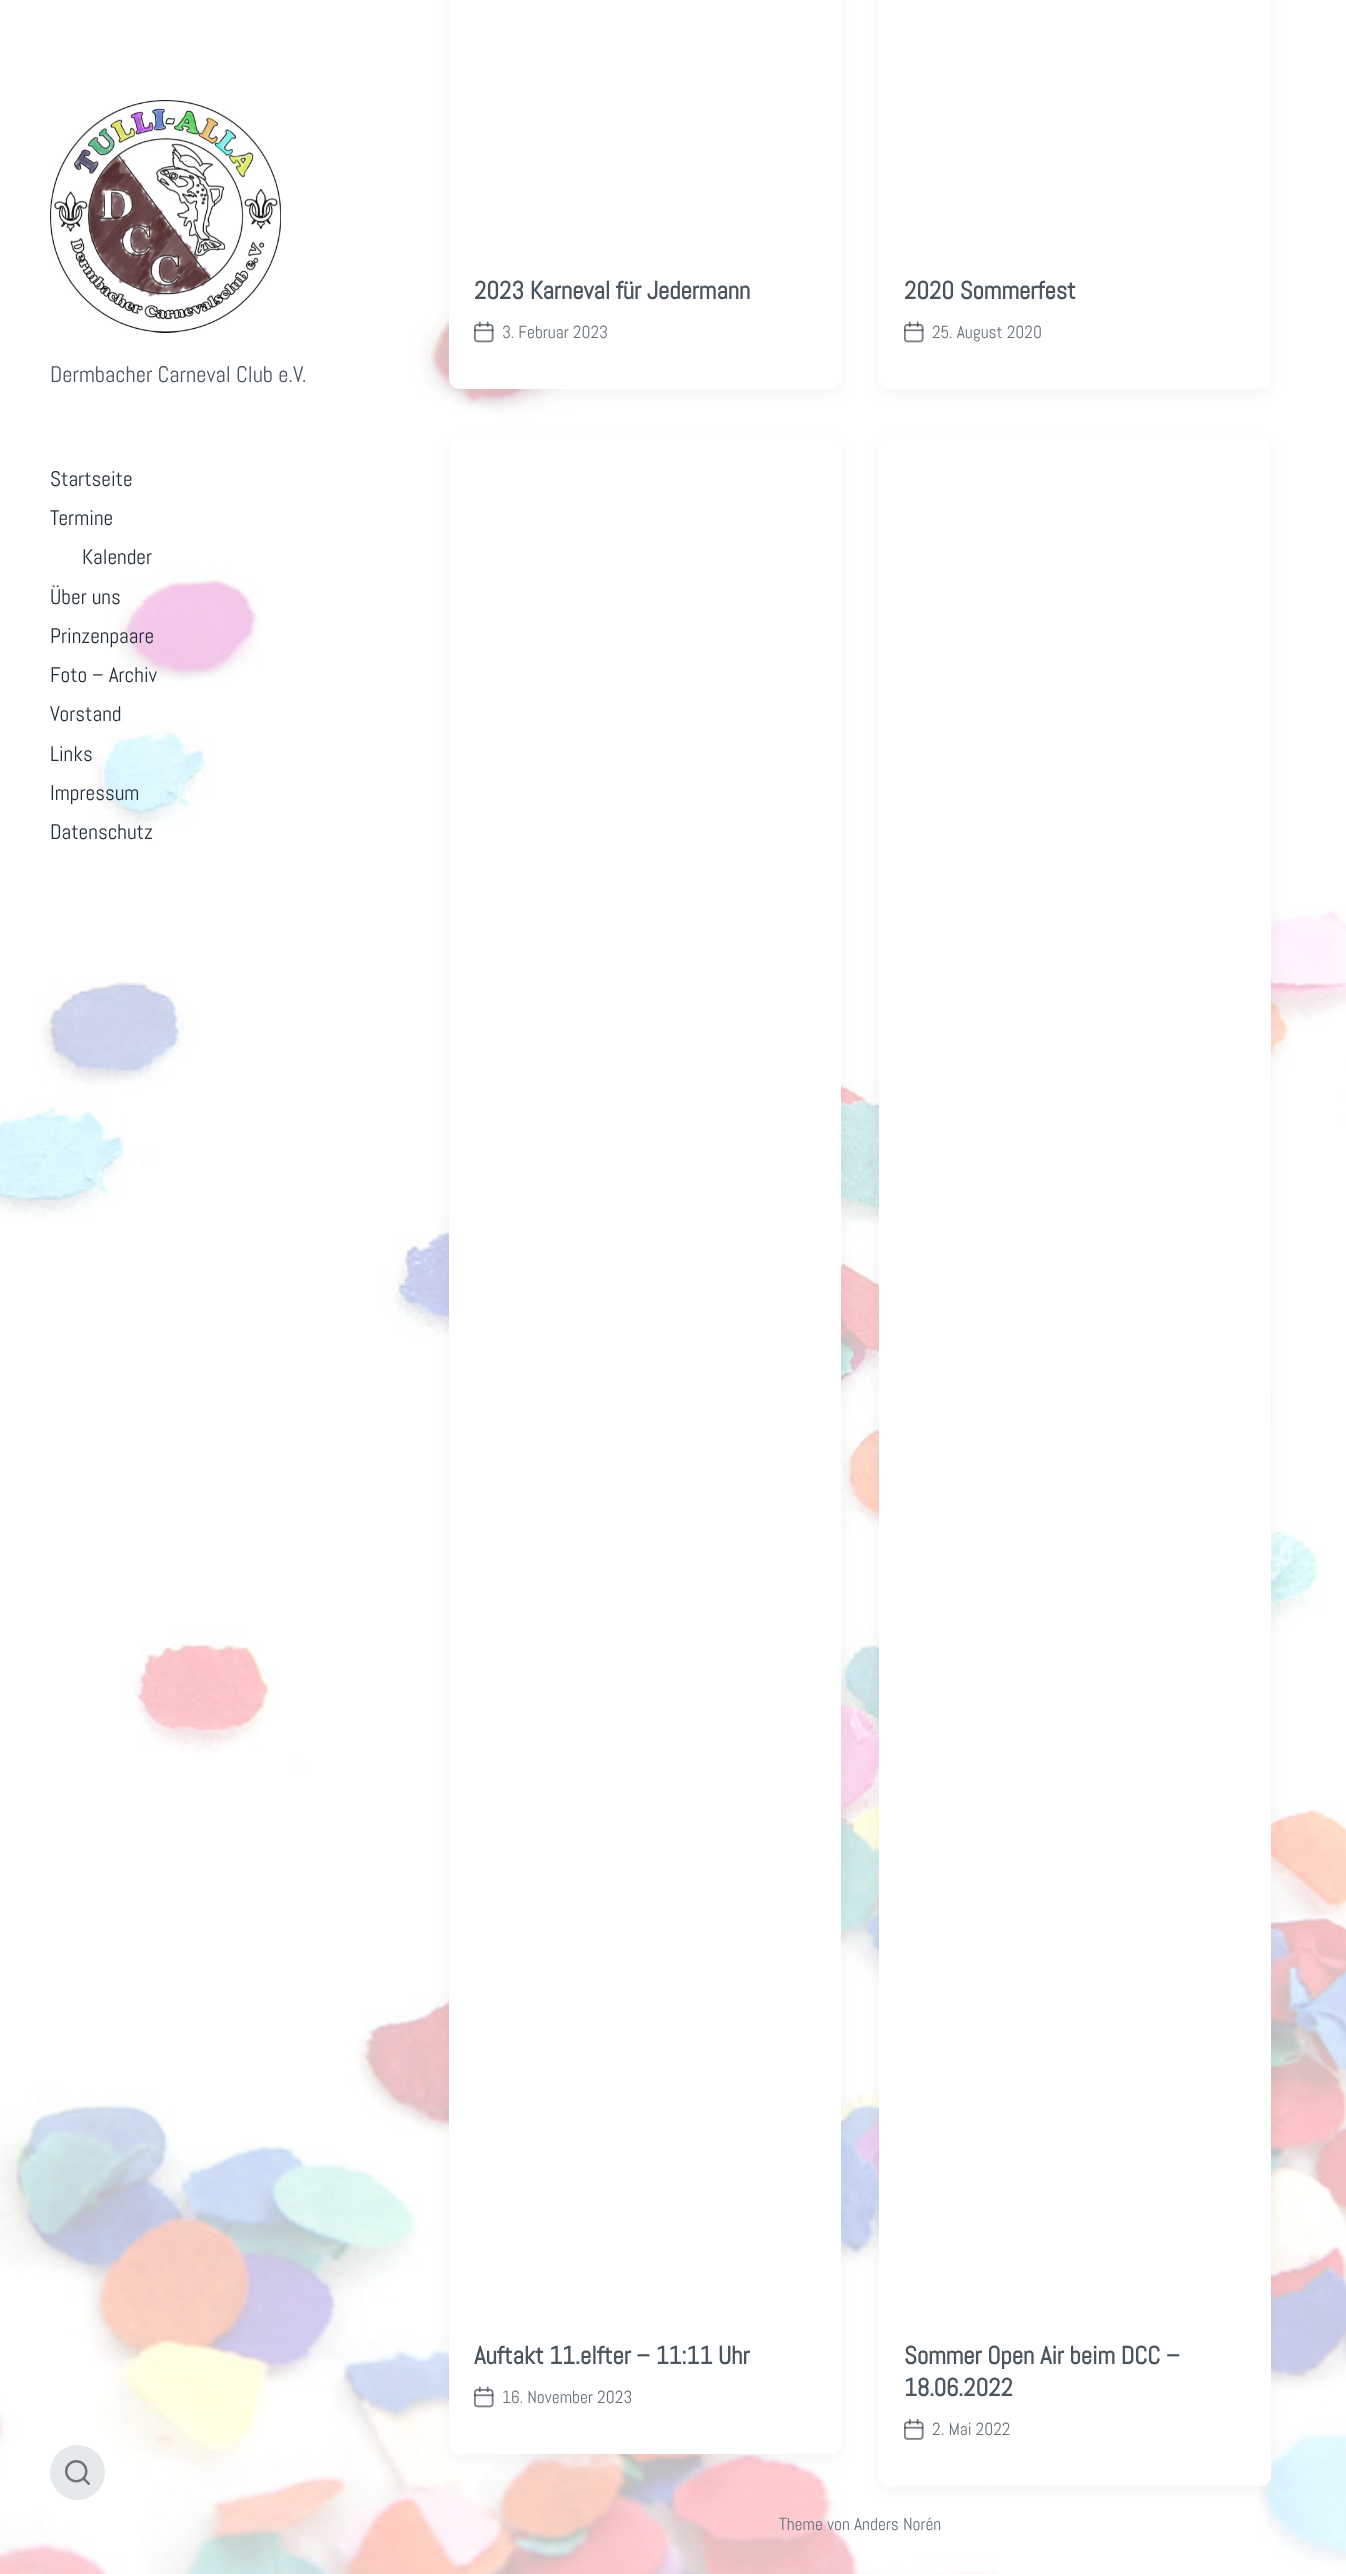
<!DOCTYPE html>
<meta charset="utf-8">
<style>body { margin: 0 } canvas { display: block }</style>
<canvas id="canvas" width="1346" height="2574"></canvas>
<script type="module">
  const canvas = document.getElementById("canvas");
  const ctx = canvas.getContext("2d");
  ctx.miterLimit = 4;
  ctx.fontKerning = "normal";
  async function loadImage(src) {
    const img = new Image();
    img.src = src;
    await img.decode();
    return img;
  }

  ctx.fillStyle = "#ffffff";
  ctx.fillRect(0, 0, 1346, 2574);
  ctx.drawImage(await loadImage("img1.png"), 0, 295, 1346, 2279);
  ctx.drawImage(await loadImage("img2.png"), 50, 100, 231, 233);
  ctx.font = "22.5px Abel";
  ctx.fillStyle = "#4b555f";
  ctx.fillText("Dermbacher Carneval Club e.V.", 50, 382);
  ctx.font = "21.25px Abel";
  ctx.fillStyle = "#232d37";
  ctx.fillText("Startseite", 50, 486);
  ctx.fillText("Termine", 50, 525);
  ctx.fillText("Kalender", 82, 564);
  ctx.fillText("Über uns", 50, 604);
  ctx.fillText("Prinzenpaare", 50, 643);
  ctx.fillText("Foto – Archiv", 50, 682);
  ctx.fillText("Vorstand", 50, 721);
  ctx.fillText("Links", 50, 761);
  ctx.fillText("Impressum", 50, 800);
  ctx.fillText("Datenschutz", 50, 839);
  ctx.fillStyle = "#e6e9ec";
  ctx.beginPath();
  ctx.arc(77.5, 2472.5, 27.5, 0, Math.PI * 2);
  ctx.fill();
  ctx.drawImage(await loadImage("img3.png"), 65, 2460, 25, 25);
  ctx.fillStyle = "rgba(5, 10, 15, 0.05)";
  ctx.filter = "blur(7.5px)";
  ctx.beginPath();
  ctx.roundRect(449, -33, 392, 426, 10);
  ctx.fill();
  ctx.filter = "none";
  ctx.fillStyle = "#ffffff";
  ctx.beginPath();
  ctx.roundRect(449, -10, 392, 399, 10);
  ctx.fill();
  ctx.letterSpacing = "-0.1px";
  ctx.font = "bold 25px Abel";
  ctx.fillStyle = "#4b555f";
  ctx.fillText("2023 Karneval für Jedermann", 474, 299);
  ctx.drawImage(await loadImage("img4.png"), 474, 321, 20, 22);
  ctx.letterSpacing = "0px";
  ctx.font = "17.5px Abel";
  ctx.fillStyle = "#68717b";
  ctx.fillText("3. Februar 2023", 502, 338);
  ctx.fillStyle = "rgba(5, 10, 15, 0.05)";
  ctx.filter = "blur(7.5px)";
  ctx.beginPath();
  ctx.roundRect(879, -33, 392, 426, 10);
  ctx.fill();
  ctx.filter = "none";
  ctx.fillStyle = "#ffffff";
  ctx.beginPath();
  ctx.roundRect(879, -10, 392, 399, 10);
  ctx.fill();
  ctx.letterSpacing = "-0.1px";
  ctx.font = "bold 25px Abel";
  ctx.fillStyle = "#4b555f";
  ctx.fillText("2020 Sommerfest", 904, 299);
  ctx.drawImage(await loadImage("img4.png"), 904, 321, 20, 22);
  ctx.letterSpacing = "0px";
  ctx.font = "17.5px Abel";
  ctx.fillStyle = "#68717b";
  ctx.fillText("25. August 2020", 932, 338);
  ctx.fillStyle = "rgba(5, 10, 15, 0.05)";
  ctx.filter = "blur(7.5px)";
  ctx.beginPath();
  ctx.roundRect(449, 443, 392, 2015, 10);
  ctx.fill();
  ctx.filter = "none";
  ctx.fillStyle = "#ffffff";
  ctx.beginPath();
  ctx.roundRect(449, 439, 392, 2015, 10);
  ctx.fill();
  ctx.letterSpacing = "-0.1px";
  ctx.font = "bold 25px Abel";
  ctx.fillStyle = "#4b555f";
  ctx.fillText("Auftakt 11.elfter – 11:11 Uhr", 474, 2364);
  ctx.drawImage(await loadImage("img4.png"), 474, 2386, 20, 22);
  ctx.letterSpacing = "0px";
  ctx.font = "17.5px Abel";
  ctx.fillStyle = "#68717b";
  ctx.fillText("16. November 2023", 502, 2403);
  ctx.fillStyle = "rgba(5, 10, 15, 0.05)";
  ctx.filter = "blur(7.5px)";
  ctx.beginPath();
  ctx.roundRect(879, 443, 392, 2047, 10);
  ctx.fill();
  ctx.filter = "none";
  ctx.fillStyle = "#ffffff";
  ctx.beginPath();
  ctx.roundRect(879, 439, 392, 2047, 10);
  ctx.fill();
  ctx.letterSpacing = "-0.1px";
  ctx.font = "bold 25px Abel";
  ctx.fillStyle = "#4b555f";
  ctx.fillText("Sommer Open Air beim DCC –", 904, 2364);
  ctx.fillText("18.06.2022", 904, 2396);
  ctx.drawImage(await loadImage("img5.png"), 904, 2419, 20, 21);
  ctx.letterSpacing = "0px";
  ctx.font = "17.5px Abel";
  ctx.fillStyle = "#68717b";
  ctx.fillText("2. Mai 2022", 932, 2435);
  ctx.fillText("Theme von Anders Norén", 779, 2530);
</script>
